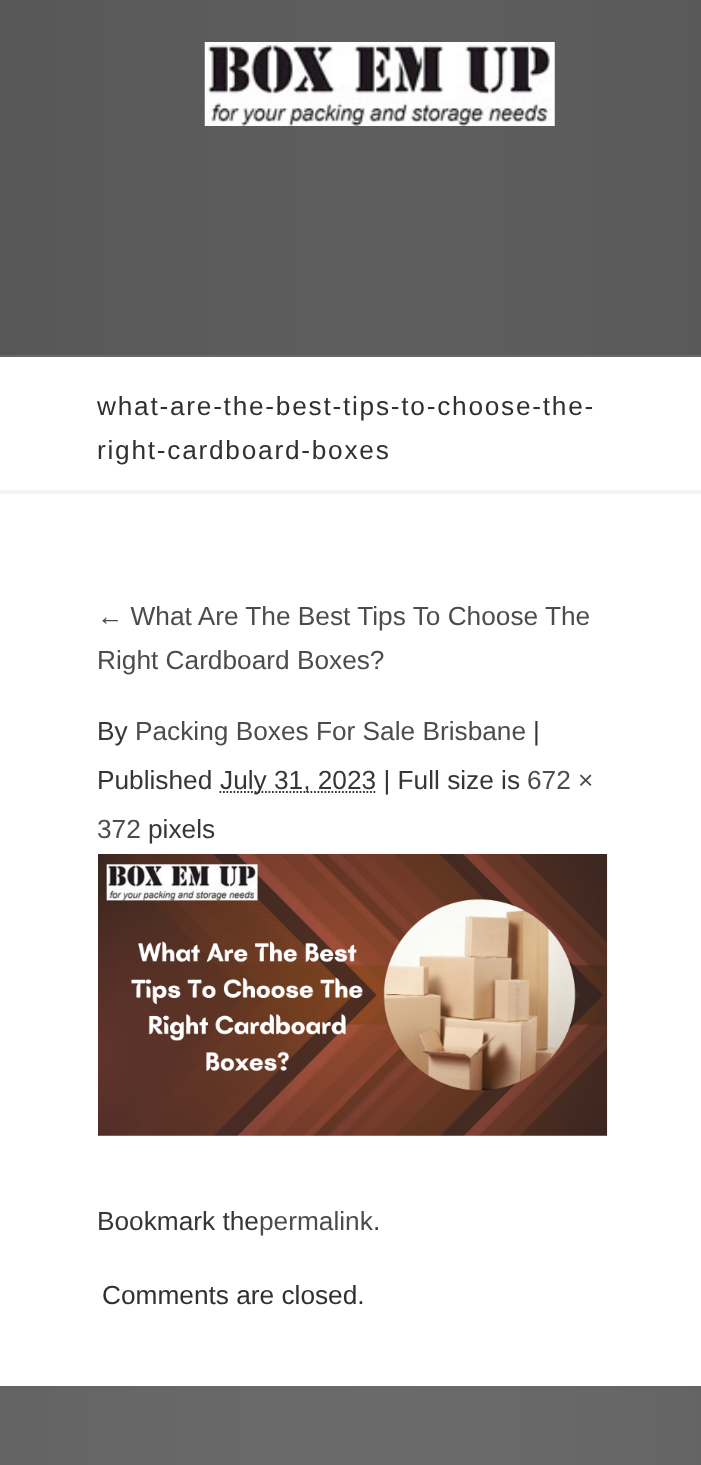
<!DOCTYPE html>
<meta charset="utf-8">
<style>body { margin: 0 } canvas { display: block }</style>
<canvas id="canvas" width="701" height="1465"></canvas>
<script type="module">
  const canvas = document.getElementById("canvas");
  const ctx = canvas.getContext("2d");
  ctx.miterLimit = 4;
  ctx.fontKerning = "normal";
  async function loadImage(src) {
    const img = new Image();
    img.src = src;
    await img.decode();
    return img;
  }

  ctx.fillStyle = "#ffffff";
  ctx.fillRect(0, 0, 701, 1465);
  ctx.drawImage(await loadImage("img1.png"), 0, 0, 701, 355);
  ctx.fillStyle = "#686869";
  ctx.fillRect(0, 355, 701, 2);
  ctx.drawImage(await loadImage("img2.png"), 204, 42, 351, 84);
  ctx.fillStyle = "#f3f3f3";
  ctx.fillRect(0, 490, 701, 4);
  ctx.letterSpacing = "1.75px";
  ctx.font = "26.25px Liberation Sans";
  ctx.fillStyle = "#312f2f";
  ctx.fillText("what-are-the-best-tips-to-choose-the-", 97, 415);
  ctx.fillText("right-cardboard-boxes", 97, 459);
  ctx.letterSpacing = "0px";
  ctx.fillStyle = "#4d4c4c";
  ctx.fillText("← What Are The Best Tips To Choose The", 97, 625);
  ctx.fillText("Right Cardboard Boxes?", 97, 669);
  ctx.fillStyle = "#373636";
  ctx.fillText("By", 97, 740);
  ctx.fillStyle = "#4d4c4c";
  ctx.fillText("Packing Boxes For Sale Brisbane", 135, 740);
  ctx.fillStyle = "#373636";
  ctx.fillText("|", 533, 740);
  ctx.fillText("Published", 97, 789);
  ctx.beginPath();
  ctx.moveTo(219.5, 792);
  ctx.lineTo(376, 792);
  ctx.strokeStyle = "#373636";
  ctx.lineWidth = 1.8;
  ctx.setLineDash([1.75, 1.75]);
  ctx.stroke();
  ctx.fillText("July 31, 2023 | Full size is", 220, 789);
  ctx.fillStyle = "#4d4c4c";
  ctx.fillText("672 ×", 527, 789);
  ctx.fillText("372", 97, 838);
  ctx.fillStyle = "#373636";
  ctx.fillText("pixels", 148, 838);
  ctx.drawImage(await loadImage("img3.png"), 98, 854, 510, 282);
  ctx.fillText("Bookmark the", 97, 1230);
  ctx.fillStyle = "#4d4c4c";
  ctx.fillText("permalink", 259, 1230);
  ctx.fillStyle = "#373636";
  ctx.fillText(".", 373, 1230);
  ctx.fillStyle = "#312f2f";
  ctx.fillText("Comments are closed.", 102, 1304);
  ctx.drawImage(await loadImage("img4.png"), 0, 1386, 701, 79);
</script>
